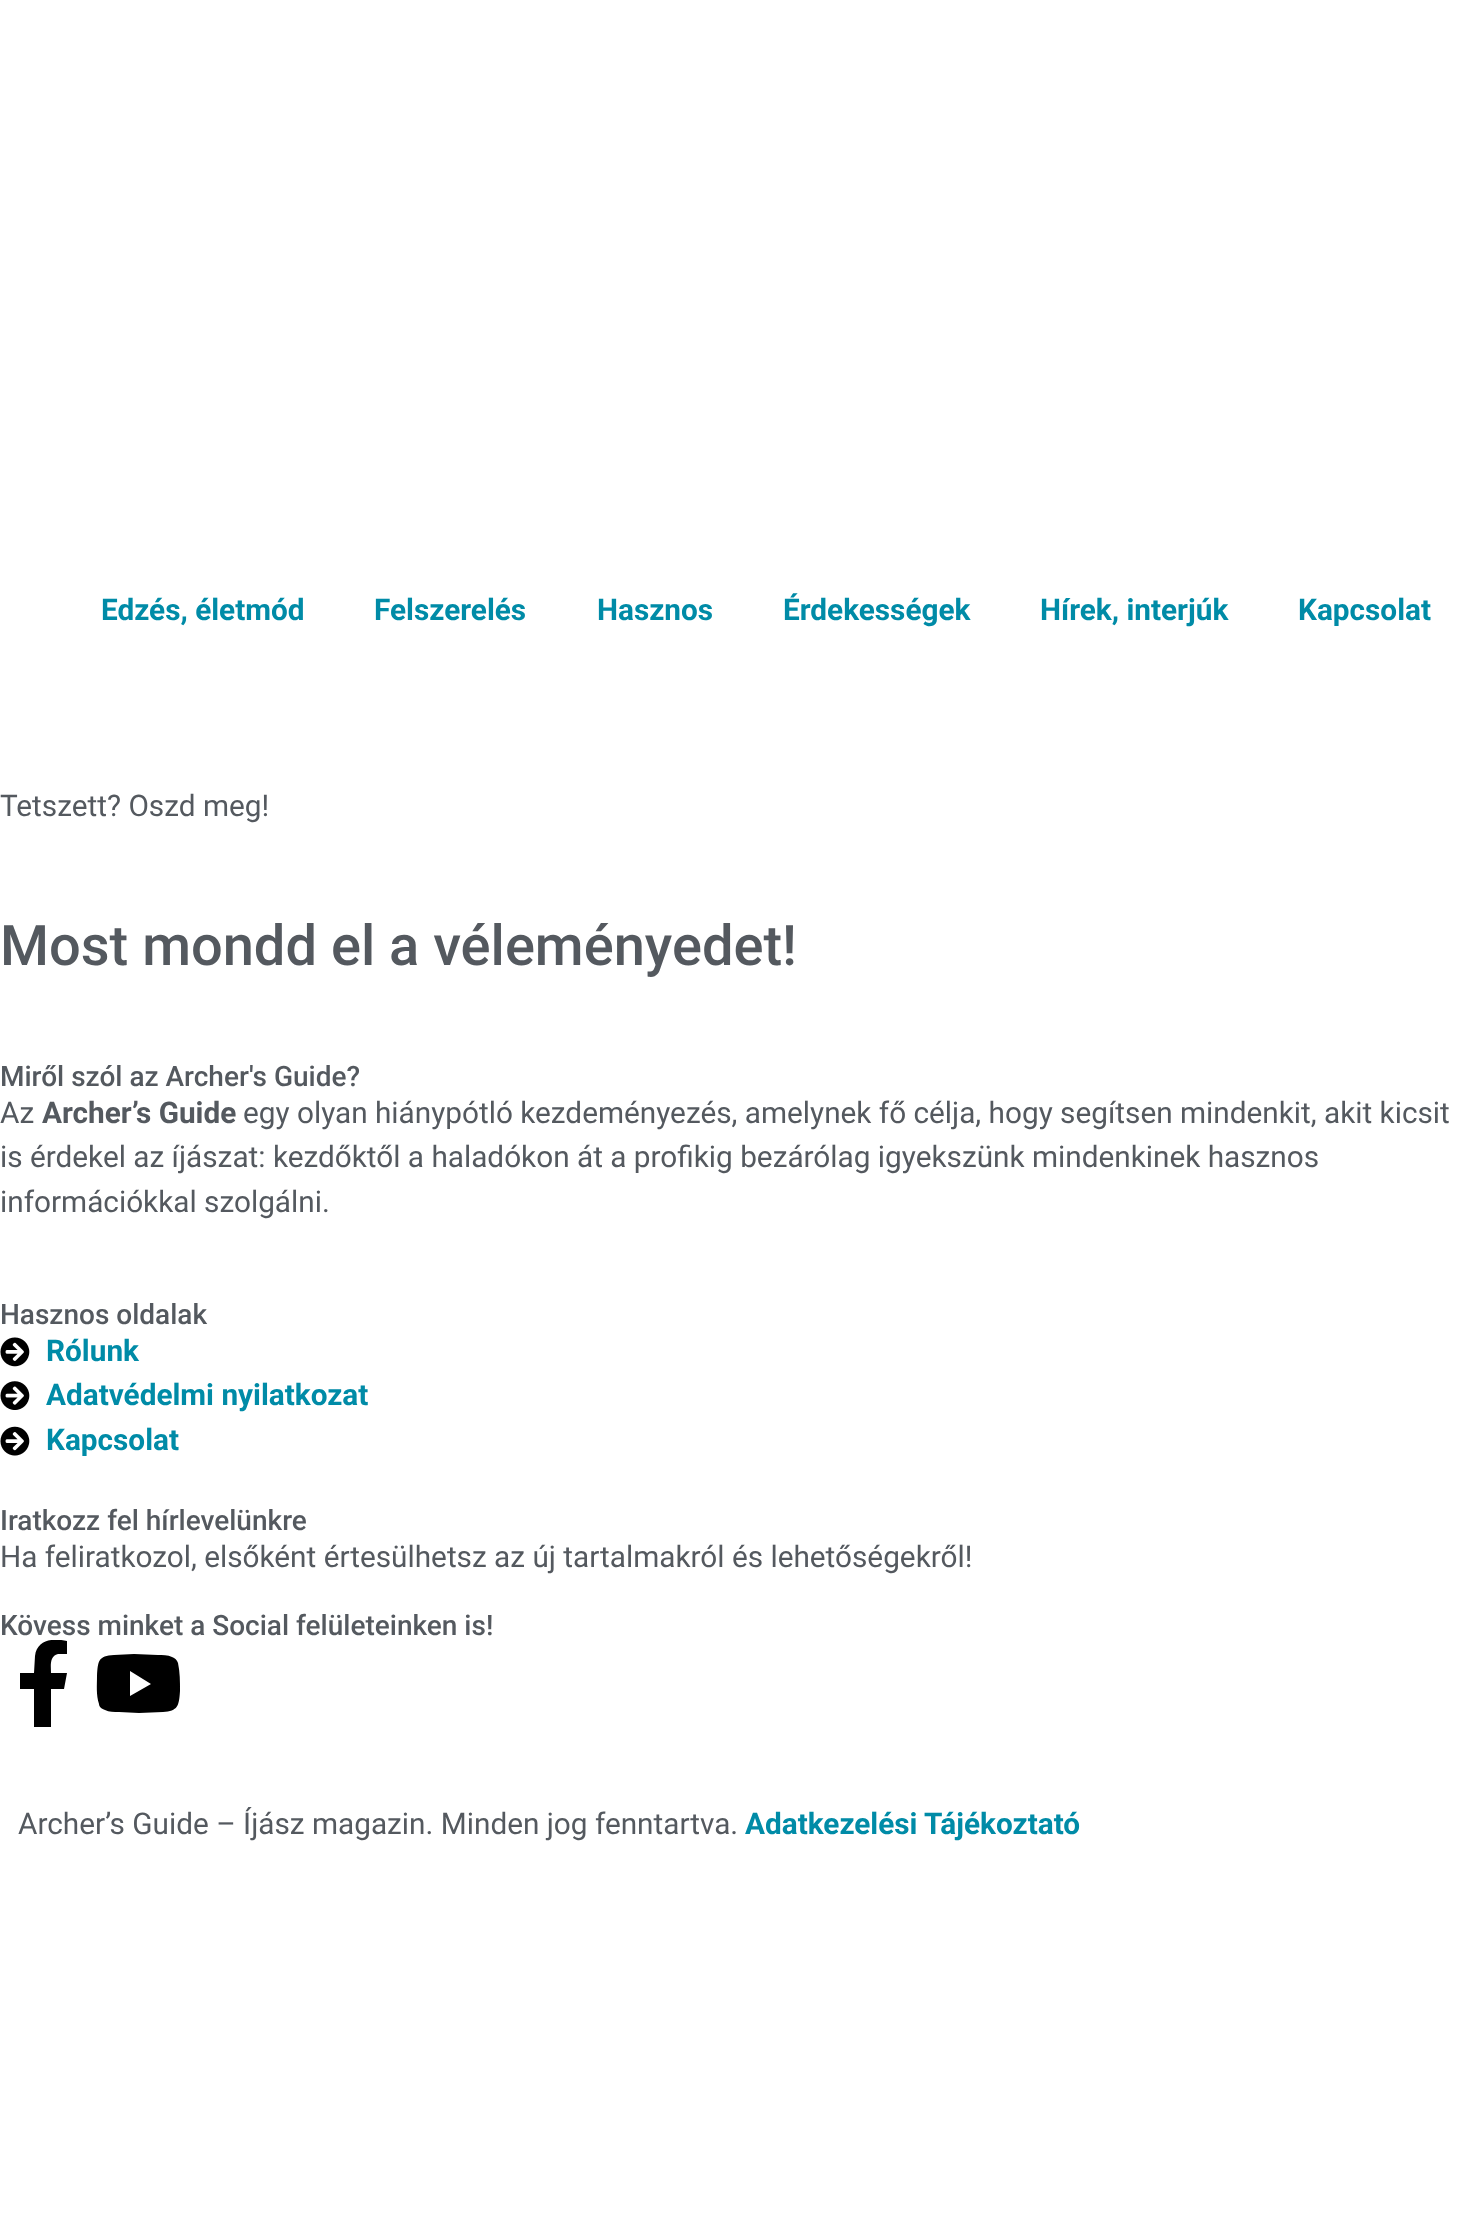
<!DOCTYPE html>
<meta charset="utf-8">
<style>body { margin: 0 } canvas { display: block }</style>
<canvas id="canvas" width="1465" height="2220"></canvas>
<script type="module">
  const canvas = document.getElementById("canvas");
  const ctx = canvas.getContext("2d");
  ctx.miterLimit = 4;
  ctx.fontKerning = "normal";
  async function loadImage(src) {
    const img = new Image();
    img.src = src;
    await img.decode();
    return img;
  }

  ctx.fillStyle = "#ffffff";
  ctx.fillRect(0, 0, 1465, 2220);
  ctx.font = "bold 29.75px Roboto";
  ctx.fillStyle = "#008ba7";
  ctx.fillText("Edzés, életmód", 101, 620);
  ctx.fillText("Felszerelés", 374, 620);
  ctx.fillText("Hasznos", 597, 620);
  ctx.fillText("Érdekességek", 783, 620);
  ctx.fillText("Hírek, interjúk", 1040, 620);
  ctx.fillText("Kapcsolat", 1298, 620);
  ctx.font = "29.75px Roboto";
  ctx.fillStyle = "#54595f";
  ctx.fillText("Tetszett? Oszd meg!", 0, 816);
  ctx.font = "500 56px Roboto";
  ctx.fillText("Most mondd el a véleményedet!", 0, 965);
  ctx.font = "500 28px Roboto";
  ctx.fillText("Miről szól az Archer's Guide?", 0, 1086);
  ctx.font = "29.75px Roboto";
  ctx.fillText("Az", 0, 1123);
  ctx.font = "bold 29.75px Roboto";
  ctx.fillText("Archer’s Guide", 42, 1123);
  ctx.font = "29.75px Roboto";
  ctx.fillText("egy olyan hiánypótló kezdeményezés, amelynek fő célja, hogy segítsen mindenkit, akit kicsit", 243, 1123);
  ctx.fillText("is érdekel az íjászat: kezdőktől a haladókon át a profikig bezárólag igyekszünk mindenkinek hasznos", 0, 1167);
  ctx.fillText("információkkal szolgálni.", 0, 1212);
  ctx.font = "500 28px Roboto";
  ctx.fillText("Hasznos oldalak", 0, 1324);
  ctx.drawImage(await loadImage("img1.png"), 0, 1337, 30, 30);
  ctx.font = "bold 29.75px Roboto";
  ctx.fillStyle = "#008ba7";
  ctx.fillText("Rólunk", 46, 1361);
  ctx.drawImage(await loadImage("img2.png"), 0, 1381, 30, 29);
  ctx.fillText("Adatvédelmi nyilatkozat", 46, 1405);
  ctx.drawImage(await loadImage("img3.png"), 0, 1426, 30, 30);
  ctx.fillText("Kapcsolat", 46, 1450);
  ctx.font = "500 28px Roboto";
  ctx.fillStyle = "#54595f";
  ctx.fillText("Iratkozz fel hírlevelünkre", 0, 1530);
  ctx.font = "29.75px Roboto";
  ctx.fillText("Ha feliratkozol, elsőként értesülhetsz az új tartalmakról és lehetőségekről!", 0, 1567);
  ctx.font = "500 28px Roboto";
  ctx.fillText("Kövess minket a Social felületeinken is!", 0, 1635);
  ctx.save();
  ctx.beginPath();
  ctx.rect(0, 1640, 88, 87);
  ctx.clip();
  ctx.fillStyle = "#000000";
  ctx.beginPath();
  ctx.moveTo(64, 1689);
  ctx.lineTo(67, 1673);
  ctx.lineTo(51, 1673);
  ctx.bezierCurveTo(51, 1667, 49, 1656, 58, 1654);
  ctx.lineTo(67, 1654);
  ctx.lineTo(67, 1641);
  ctx.bezierCurveTo(54, 1638, 37, 1639, 35, 1656);
  ctx.lineTo(34, 1673);
  ctx.lineTo(20, 1673);
  ctx.lineTo(20, 1689);
  ctx.lineTo(34, 1689);
  ctx.lineTo(34, 1727);
  ctx.lineTo(51, 1727);
  ctx.lineTo(51, 1689);
  ctx.closePath();
  ctx.fill();
  ctx.restore();
  ctx.fillStyle = "#000000";
  ctx.beginPath();
  ctx.moveTo(178, 1663);
  ctx.bezierCurveTo(177, 1660, 175, 1658, 172, 1657);
  ctx.bezierCurveTo(168, 1655, 162, 1655, 158, 1655);
  ctx.lineTo(134, 1654);
  ctx.lineTo(114, 1655);
  ctx.bezierCurveTo(98, 1656, 98, 1661, 97, 1676);
  ctx.bezierCurveTo(97, 1685, 96, 1695, 99, 1704);
  ctx.bezierCurveTo(99, 1707, 102, 1709, 105, 1710);
  ctx.bezierCurveTo(109, 1712, 114, 1712, 119, 1712);
  ctx.lineTo(139, 1713);
  ctx.lineTo(163, 1712);
  ctx.bezierCurveTo(178, 1711, 179, 1706, 180, 1691);
  ctx.bezierCurveTo(180, 1682, 180, 1672, 178, 1663);
  ctx.closePath();
  ctx.moveTo(130, 1696);
  ctx.lineTo(130, 1671);
  ctx.lineTo(151, 1684);
  ctx.closePath();
  ctx.fill();
  ctx.font = "29.75px Roboto";
  ctx.fillStyle = "#54595f";
  ctx.fillText("Archer’s Guide – Íjász magazin. Minden jog fenntartva.", 18, 1834);
  ctx.font = "bold 29.75px Roboto";
  ctx.fillStyle = "#008ba7";
  ctx.fillText("Adatkezelési Tájékoztató", 745, 1834);
</script>
